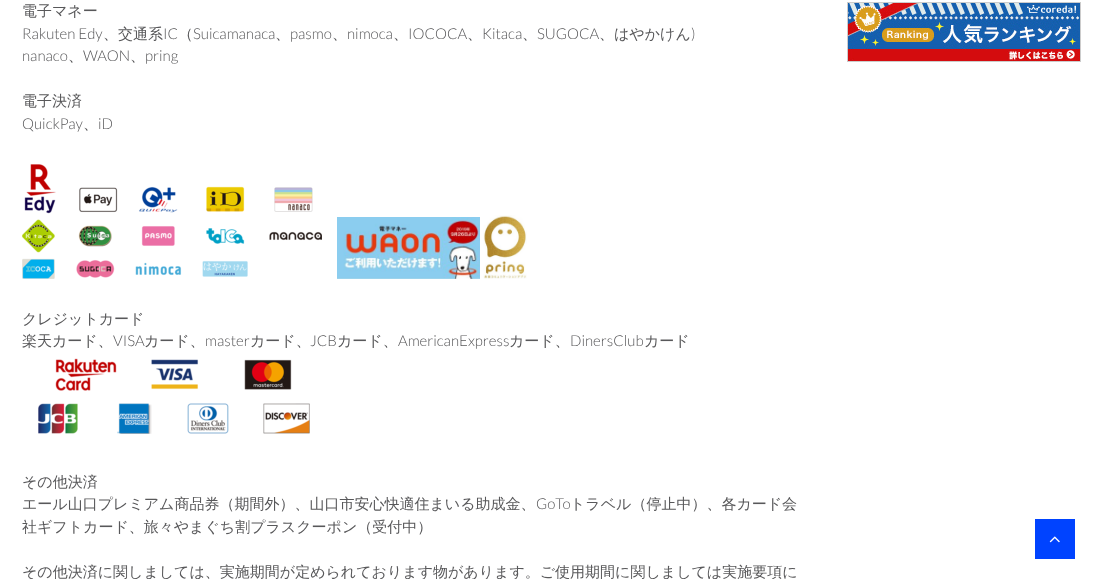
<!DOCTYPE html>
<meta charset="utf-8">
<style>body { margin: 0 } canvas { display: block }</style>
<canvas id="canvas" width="1115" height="579"></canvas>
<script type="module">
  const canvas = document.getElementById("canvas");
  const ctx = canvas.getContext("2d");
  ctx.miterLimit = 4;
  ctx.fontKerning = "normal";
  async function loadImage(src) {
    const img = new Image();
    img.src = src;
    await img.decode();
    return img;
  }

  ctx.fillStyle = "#ffffff";
  ctx.fillRect(0, 0, 1115, 579);
  ctx.font = "500 15px WenQuanYi Zen Hei";
  ctx.fillStyle = "#58585a";
  ctx.fillText("電子マネー", 22, 16);
  ctx.font = "300 15px Lato";
  ctx.fillText("Rakuten Edy", 22, 39);
  ctx.font = "500 15px WenQuanYi Zen Hei";
  ctx.fillText("、交通系", 103, 39);
  ctx.font = "300 15px Lato";
  ctx.fillText("IC", 163, 39);
  ctx.font = "500 15px WenQuanYi Zen Hei";
  ctx.fillText("（", 178, 39);
  ctx.font = "300 15px Lato";
  ctx.fillText("Suicamanaca", 193, 39);
  ctx.font = "500 15px WenQuanYi Zen Hei";
  ctx.fillText("、", 275, 39);
  ctx.font = "300 15px Lato";
  ctx.fillText("pasmo", 290, 39);
  ctx.font = "500 15px WenQuanYi Zen Hei";
  ctx.fillText("、", 332, 39);
  ctx.font = "300 15px Lato";
  ctx.fillText("nimoca", 347, 39);
  ctx.font = "500 15px WenQuanYi Zen Hei";
  ctx.fillText("、", 393, 39);
  ctx.font = "300 15px Lato";
  ctx.fillText("IOCOCA", 408, 39);
  ctx.font = "500 15px WenQuanYi Zen Hei";
  ctx.fillText("、", 467, 39);
  ctx.font = "300 15px Lato";
  ctx.fillText("Kitaca", 482, 39);
  ctx.font = "500 15px WenQuanYi Zen Hei";
  ctx.fillText("、", 522, 39);
  ctx.font = "300 15px Lato";
  ctx.fillText("SUGOCA", 537, 39);
  ctx.font = "500 15px WenQuanYi Zen Hei";
  ctx.fillText("、はやかけん", 599, 39);
  ctx.font = "300 15px Lato";
  ctx.fillText(")", 691, 39);
  ctx.fillText("nanaco", 22, 61);
  ctx.font = "500 15px WenQuanYi Zen Hei";
  ctx.fillText("、", 68, 61);
  ctx.font = "300 15px Lato";
  ctx.fillText("WAON", 83, 61);
  ctx.font = "500 15px WenQuanYi Zen Hei";
  ctx.fillText("、", 130, 61);
  ctx.font = "300 15px Lato";
  ctx.fillText("pring", 145, 61);
  ctx.font = "500 15px WenQuanYi Zen Hei";
  ctx.fillText("電子決済", 22, 106);
  ctx.font = "300 15px Lato";
  ctx.fillText("QuickPay", 22, 129);
  ctx.font = "500 15px WenQuanYi Zen Hei";
  ctx.fillText("、", 83, 129);
  ctx.font = "300 15px Lato";
  ctx.fillText("iD", 98, 129);
  ctx.drawImage(await loadImage("img1.png"), 22, 164, 300, 115);
  ctx.drawImage(await loadImage("img2.png"), 337, 217, 143, 62);
  ctx.drawImage(await loadImage("img3.png"), 483, 215, 44, 64);
  ctx.font = "500 15px WenQuanYi Zen Hei";
  ctx.fillText("クレジットカード", 22, 324);
  ctx.fillText("楽天カード、", 22, 346);
  ctx.font = "300 15px Lato";
  ctx.fillText("VISA", 113, 346);
  ctx.font = "500 15px WenQuanYi Zen Hei";
  ctx.fillText("カード、", 144, 346);
  ctx.font = "300 15px Lato";
  ctx.fillText("master", 205, 346);
  ctx.font = "500 15px WenQuanYi Zen Hei";
  ctx.fillText("カード、", 250, 346);
  ctx.font = "300 15px Lato";
  ctx.fillText("JCB", 310, 346);
  ctx.font = "500 15px WenQuanYi Zen Hei";
  ctx.fillText("カード、", 337, 346);
  ctx.font = "300 15px Lato";
  ctx.fillText("AmericanExpress", 398, 346);
  ctx.font = "500 15px WenQuanYi Zen Hei";
  ctx.fillText("カード、", 509, 346);
  ctx.font = "300 15px Lato";
  ctx.fillText("DinersClub", 570, 346);
  ctx.font = "500 15px WenQuanYi Zen Hei";
  ctx.fillText("カード", 644, 346);
  ctx.drawImage(await loadImage("img4.png"), 38, 358, 272, 76);
  ctx.fillText("その他決済", 22, 487);
  ctx.fillText("エール山口プレミアム商品券（期間外）、山口市安心快適住まいる助成金、", 22, 509);
  ctx.font = "300 15px Lato";
  ctx.fillText("GoTo", 536, 509);
  ctx.font = "500 15px WenQuanYi Zen Hei";
  ctx.fillText("トラベル（停止中）、各カード会", 570, 509);
  ctx.fillText("社ギフトカード、旅々やまぐち割プラスクーポン（受付中）", 22, 532);
  ctx.fillText("その他決済に関しましては、実施期間が定められております物があります。ご使用期間に関しましては実施要項に", 22, 577);
  ctx.drawImage(await loadImage("img5.png"), 847, 2, 234, 60);
  ctx.fillStyle = "#0043ff";
  ctx.fillRect(1035, 519, 40, 40);
  ctx.drawImage(await loadImage("img6.png"), 1049, 536, 11, 7);
</script>
